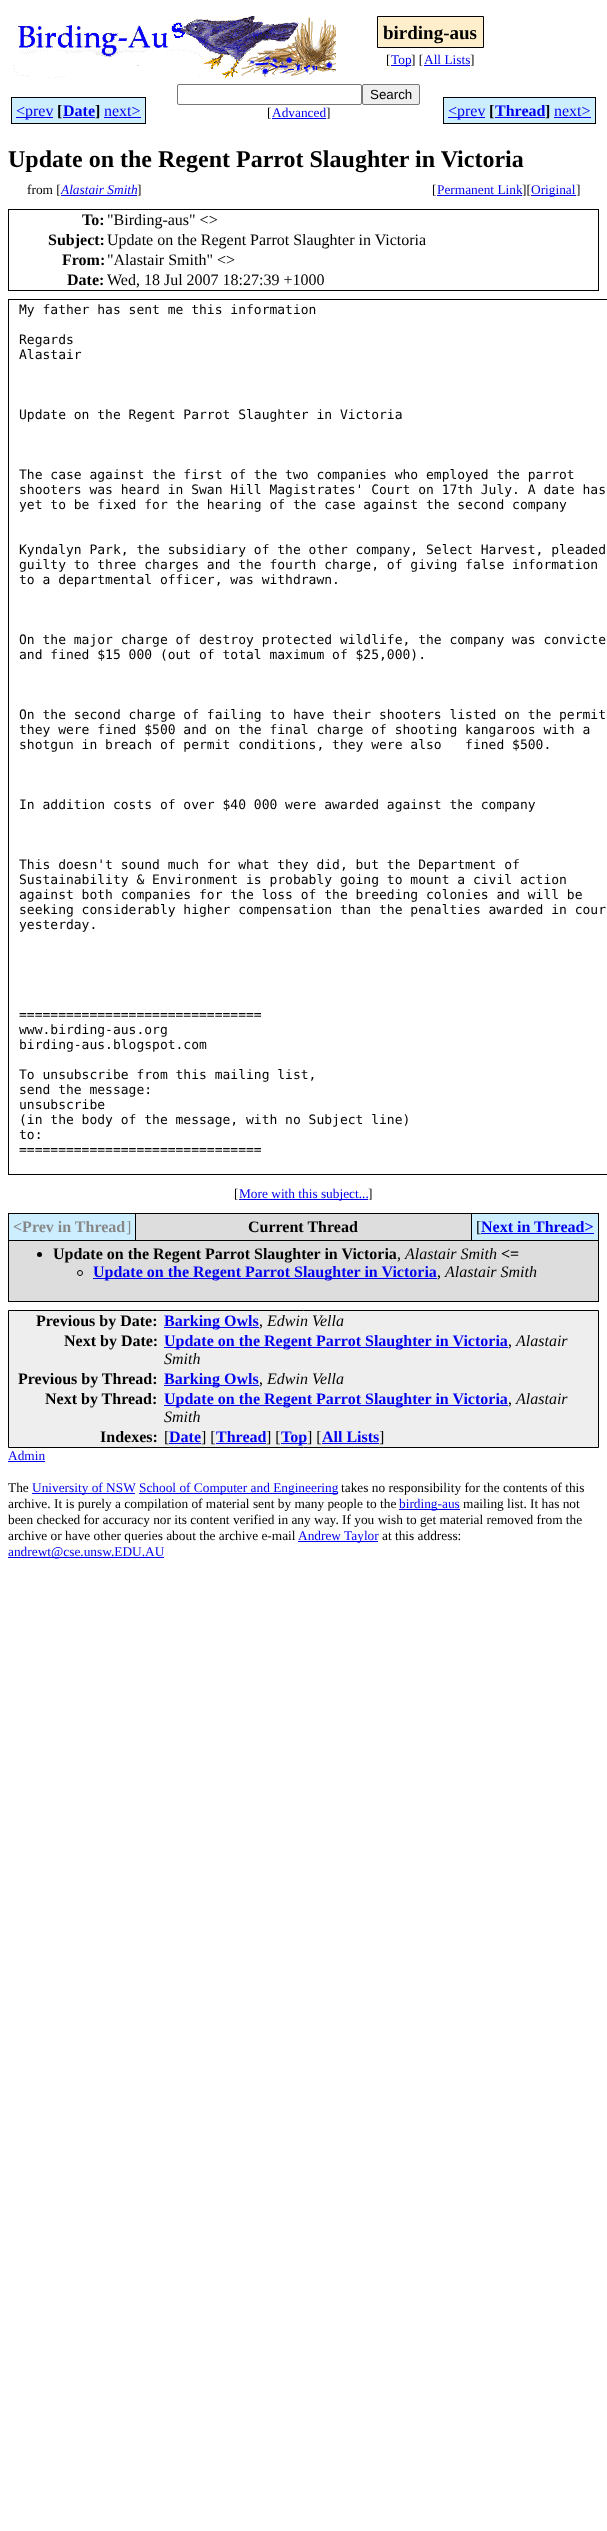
<!DOCTYPE html>
<meta charset="utf-8">
<style>body { margin: 0 } canvas { display: block }</style>
<canvas id="canvas" width="607" height="2531"></canvas>
<script type="module">
  const canvas = document.getElementById("canvas");
  const ctx = canvas.getContext("2d");
  ctx.miterLimit = 4;
  ctx.fontKerning = "normal";
  async function loadImage(src) {
    const img = new Image();
    img.src = src;
    await img.decode();
    return img;
  }

  ctx.fillStyle = "#ffffff";
  ctx.fillRect(0, 0, 607, 2531);
  ctx.drawImage(await loadImage("img1.png"), 13, 16, 323, 62);
  ctx.fillStyle = "#ffeecc";
  ctx.beginPath();
  ctx.rect(377.5, 16.5, 106, 31);
  ctx.fill();
  ctx.strokeStyle = "#000000";
  ctx.stroke();
  ctx.font = "bold 19px Liberation Serif";
  ctx.fillStyle = "#000000";
  ctx.fillText("birding-aus", 383, 39);
  ctx.font = "13.35px Liberation Serif";
  ctx.fillText("[", 386, 64);
  ctx.fillStyle = "#0000ee";
  ctx.fillRect(391, 65, 20, 1);
  ctx.fillText("Top", 391, 64);
  ctx.fillStyle = "#000000";
  ctx.fillText("] [", 411, 64);
  ctx.fillStyle = "#0000ee";
  ctx.fillText("All Lists", 424, 64);
  ctx.fillStyle = "#000000";
  ctx.fillText("]", 470, 64);
  ctx.fillStyle = "#0000ee";
  ctx.fillRect(424, 65, 46, 1);
  ctx.fillStyle = "#cceeff";
  ctx.fillRect(12, 98, 41, 25);
  ctx.fillStyle = "#0000ee";
  ctx.fillRect(16, 117, 37, 1);
  ctx.fillStyle = "#cceeff";
  ctx.fillRect(53, 97, 10, 27);
  ctx.font = "16px Liberation Serif";
  ctx.fillStyle = "#0000ee";
  ctx.fillText("<prev", 16, 116);
  ctx.fillStyle = "#000000";
  ctx.fillRect(11, 97, 42, 1);
  ctx.fillRect(11, 123, 42, 1);
  ctx.fillRect(11, 97, 1, 27);
  ctx.fillRect(53, 123, 42, 1);
  ctx.font = "bold 16px Liberation Serif";
  ctx.fillText("[", 57, 116);
  ctx.fillStyle = "#cceeff";
  ctx.fillRect(63, 98, 32, 25);
  ctx.fillStyle = "#0000ee";
  ctx.fillRect(63, 117, 32, 1);
  ctx.fillText("Date", 63, 116);
  ctx.fillStyle = "#000000";
  ctx.fillRect(53, 97, 42, 1);
  ctx.fillStyle = "#cceeff";
  ctx.fillRect(95, 97, 9, 27);
  ctx.fillStyle = "#000000";
  ctx.fillRect(95, 97, 51, 1);
  ctx.fillText("]", 95, 116);
  ctx.fillRect(95, 123, 9, 1);
  ctx.fillStyle = "#cceeff";
  ctx.fillRect(104, 98, 41, 25);
  ctx.font = "16px Liberation Serif";
  ctx.fillStyle = "#0000ee";
  ctx.fillText("next>", 104, 116);
  ctx.fillStyle = "#000000";
  ctx.fillRect(145, 97, 1, 27);
  ctx.fillRect(104, 123, 42, 1);
  ctx.fillStyle = "#0000ee";
  ctx.fillRect(104, 117, 37, 1);
  ctx.beginPath();
  ctx.roundRect(177.5, 84.5, 184, 20, 1.5);
  ctx.strokeStyle = "#767676";
  ctx.stroke();
  ctx.fillStyle = "#efefef";
  ctx.beginPath();
  ctx.roundRect(362.5, 84.5, 57, 20, 1.5);
  ctx.fill();
  ctx.stroke();
  ctx.font = "13.35px Liberation Sans";
  ctx.fillStyle = "#000000";
  ctx.fillText("Search", 370, 99);
  ctx.font = "13.35px Liberation Serif";
  ctx.fillText("[", 267, 117);
  ctx.fillStyle = "#0000ee";
  ctx.fillRect(272, 118, 54, 1);
  ctx.fillText("Advanced", 272, 117);
  ctx.fillStyle = "#000000";
  ctx.fillText("]", 326, 117);
  ctx.fillStyle = "#cceeff";
  ctx.fillRect(444, 98, 41, 25);
  ctx.fillStyle = "#0000ee";
  ctx.fillRect(448, 117, 37, 1);
  ctx.fillStyle = "#cceeff";
  ctx.fillRect(485, 97, 10, 27);
  ctx.font = "16px Liberation Serif";
  ctx.fillStyle = "#0000ee";
  ctx.fillText("<prev", 448, 116);
  ctx.fillStyle = "#000000";
  ctx.fillRect(443, 97, 42, 1);
  ctx.fillRect(443, 123, 42, 1);
  ctx.fillRect(443, 97, 1, 27);
  ctx.fillRect(485, 123, 60, 1);
  ctx.font = "bold 16px Liberation Serif";
  ctx.fillText("[", 489, 116);
  ctx.fillStyle = "#cceeff";
  ctx.fillRect(495, 98, 50, 25);
  ctx.fillStyle = "#0000ee";
  ctx.fillRect(495, 117, 50, 1);
  ctx.fillText("Thread", 495, 116);
  ctx.fillStyle = "#000000";
  ctx.fillRect(485, 97, 60, 1);
  ctx.fillStyle = "#cceeff";
  ctx.fillRect(545, 97, 9, 27);
  ctx.fillStyle = "#000000";
  ctx.fillRect(545, 97, 51, 1);
  ctx.fillText("]", 545, 116);
  ctx.fillRect(545, 123, 9, 1);
  ctx.fillStyle = "#cceeff";
  ctx.fillRect(554, 98, 41, 25);
  ctx.font = "16px Liberation Serif";
  ctx.fillStyle = "#0000ee";
  ctx.fillText("next>", 554, 116);
  ctx.fillStyle = "#000000";
  ctx.fillRect(595, 97, 1, 27);
  ctx.fillRect(554, 123, 42, 1);
  ctx.fillStyle = "#0000ee";
  ctx.fillRect(554, 117, 37, 1);
  ctx.font = "bold 24px Liberation Serif";
  ctx.fillStyle = "#000000";
  ctx.fillText("Update on the Regent Parrot Slaughter in Victoria", 8, 167);
  ctx.font = "13.35px Liberation Serif";
  ctx.fillText("from [", 27, 194);
  ctx.fillStyle = "#0000ee";
  ctx.fillRect(61, 195, 76, 1);
  ctx.font = "italic 13.35px Liberation Serif";
  ctx.fillText("Alastair Smith", 61, 194);
  ctx.font = "13.35px Liberation Serif";
  ctx.fillStyle = "#000000";
  ctx.fillText("]", 137, 194);
  ctx.fillText("[", 432, 194);
  ctx.fillStyle = "#0000ee";
  ctx.fillRect(437, 195, 85, 1);
  ctx.fillText("Permanent Link", 437, 194);
  ctx.fillStyle = "#000000";
  ctx.fillText("][", 522, 194);
  ctx.fillStyle = "#0000ee";
  ctx.fillRect(531, 195, 45, 1);
  ctx.fillText("Original", 531, 194);
  ctx.fillStyle = "#000000";
  ctx.fillText("]", 576, 194);
  ctx.strokeStyle = "#000000";
  ctx.strokeRect(8.5, 209.5, 590, 81);
  ctx.font = "bold 16px Liberation Serif";
  ctx.fillText("To:", 82, 225);
  ctx.font = "16px Liberation Serif";
  ctx.fillText("\"Birding-aus\" <>", 107, 225);
  ctx.font = "bold 16px Liberation Serif";
  ctx.fillText("Subject:", 48, 245);
  ctx.font = "16px Liberation Serif";
  ctx.fillText("Update on the Regent Parrot Slaughter in Victoria", 107, 245);
  ctx.font = "bold 16px Liberation Serif";
  ctx.fillText("From:", 62, 265);
  ctx.font = "16px Liberation Serif";
  ctx.fillText("\"Alastair Smith\" <>", 107, 265);
  ctx.font = "bold 16px Liberation Serif";
  ctx.fillText("Date:", 67, 285);
  ctx.font = "16px Liberation Serif";
  ctx.fillText("Wed, 18 Jul 2007 18:27:39 +1000", 107, 285);
  ctx.strokeRect(8.5, 299.5, 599, 875);
  ctx.font = "13px DejaVu Sans Mono";
  ctx.fillText("My father has sent me this information", 19, 314);
  ctx.fillText("Regards", 19, 344);
  ctx.fillText("Alastair", 19, 359);
  ctx.fillText("Update on the Regent Parrot Slaughter in Victoria", 19, 419);
  ctx.fillText("The case against the first of the two companies who employed the parrot", 19, 479);
  ctx.fillText("shooters was heard in Swan Hill Magistrates' Court on 17th July. A date has", 19, 494);
  ctx.fillText("yet to be fixed for the hearing of the case against the second company", 19, 509);
  ctx.fillText("Kyndalyn Park, the subsidiary of the other company, Select Harvest, pleaded", 19, 554);
  ctx.fillText("guilty to three charges and the fourth charge, of giving false information", 19, 569);
  ctx.fillText("to a departmental officer, was withdrawn.", 19, 584);
  ctx.fillText("On the major charge of destroy protected wildlife, the company was convicte", 19, 644);
  ctx.fillText("and fined $15 000 (out of total maximum of $25,000).", 19, 659);
  ctx.fillText("On the second charge of failing to have their shooters listed on the permit", 19, 719);
  ctx.fillText("they were fined $500 and on the final charge of shooting kangaroos with a", 19, 734);
  ctx.fillText("shotgun in breach of permit conditions, they were also   fined $500.", 19, 749);
  ctx.fillText("In addition costs of over $40 000 were awarded against the company", 19, 809);
  ctx.fillText("This doesn't sound much for what they did, but the Department of", 19, 869);
  ctx.fillText("Sustainability & Environment is probably going to mount a civil action", 19, 884);
  ctx.fillText("against both companies for the loss of the breeding colonies and will be", 19, 899);
  ctx.fillText("seeking considerably higher compensation than the penalties awarded in cour", 19, 914);
  ctx.fillText("yesterday.", 19, 929);
  ctx.fillText("===============================", 19, 1019);
  ctx.fillText("www.birding-aus.org", 19, 1034);
  ctx.fillText("birding-aus.blogspot.com", 19, 1049);
  ctx.fillText("To unsubscribe from this mailing list,", 19, 1079);
  ctx.fillText("send the message:", 19, 1094);
  ctx.fillText("unsubscribe", 19, 1109);
  ctx.fillText("(in the body of the message, with no Subject line)", 19, 1124);
  ctx.fillText("to:", 19, 1139);
  ctx.fillText("===============================", 19, 1154);
  ctx.font = "13.35px Liberation Serif";
  ctx.fillText("[", 234, 1198);
  ctx.fillStyle = "#0000ee";
  ctx.fillRect(239, 1199, 129, 1);
  ctx.fillText("More with this subject...", 239, 1198);
  ctx.fillStyle = "#000000";
  ctx.fillText("]", 368, 1198);
  ctx.fillRect(8, 1213, 591, 89);
  ctx.fillStyle = "#cceeff";
  ctx.fillRect(9, 1214, 126, 26);
  ctx.font = "bold 16px Liberation Serif";
  ctx.fillStyle = "#888888";
  ctx.fillText("<Prev in Thread", 13, 1232);
  ctx.font = "16px Liberation Serif";
  ctx.fillText("]", 126, 1232);
  ctx.fillStyle = "#dddddd";
  ctx.fillRect(136, 1214, 335, 26);
  ctx.font = "bold 16px Liberation Serif";
  ctx.fillStyle = "#000000";
  ctx.fillText("Current Thread", 248, 1232);
  ctx.fillStyle = "#cceeff";
  ctx.fillRect(472, 1214, 126, 26);
  ctx.font = "16px Liberation Serif";
  ctx.fillStyle = "#000000";
  ctx.fillText("[", 476, 1232);
  ctx.font = "bold 16px Liberation Serif";
  ctx.fillStyle = "#0000ee";
  ctx.fillText("Next in Thread>", 481, 1232);
  ctx.fillRect(481, 1233, 113, 1);
  ctx.fillStyle = "#dddddd";
  ctx.fillRect(9, 1241, 589, 60);
  ctx.fillStyle = "#000000";
  ctx.beginPath();
  ctx.arc(39.5, 1254.5, 2.5, 0, Math.PI * 2);
  ctx.fill();
  ctx.fillText("Update on the Regent Parrot Slaughter in Victoria", 53, 1259);
  ctx.font = "italic 16px Liberation Serif";
  ctx.fillText("Alastair Smith", 405, 1259);
  ctx.font = "bold 16px Liberation Serif";
  ctx.fillText("<=", 501, 1259);
  ctx.font = "16px Liberation Serif";
  ctx.fillText(",", 397, 1259);
  ctx.beginPath();
  ctx.arc(80, 1273, 2.5, 0, Math.PI * 2);
  ctx.stroke();
  ctx.fillStyle = "#0000ee";
  ctx.fillRect(93, 1278, 344, 1);
  ctx.font = "bold 16px Liberation Serif";
  ctx.fillText("Update on the Regent Parrot Slaughter in Victoria", 93, 1277);
  ctx.font = "italic 16px Liberation Serif";
  ctx.fillStyle = "#000000";
  ctx.fillText("Alastair Smith", 445, 1277);
  ctx.font = "16px Liberation Serif";
  ctx.fillText(",", 437, 1277);
  ctx.fillStyle = "#eeeeee";
  ctx.beginPath();
  ctx.rect(8.5, 1310.5, 590, 137);
  ctx.fill();
  ctx.stroke();
  ctx.font = "bold 16px Liberation Serif";
  ctx.fillStyle = "#000000";
  ctx.fillText("Previous by Date:", 36, 1326);
  ctx.fillStyle = "#0000ee";
  ctx.fillRect(164, 1327, 95, 1);
  ctx.fillText("Barking Owls", 164, 1326);
  ctx.font = "16px Liberation Serif";
  ctx.fillStyle = "#000000";
  ctx.fillText(",", 259, 1326);
  ctx.font = "italic 16px Liberation Serif";
  ctx.fillText("Edwin Vella", 267, 1326);
  ctx.font = "bold 16px Liberation Serif";
  ctx.fillText("Next by Date:", 64, 1346);
  ctx.fillStyle = "#0000ee";
  ctx.fillRect(164, 1347, 344, 1);
  ctx.fillText("Update on the Regent Parrot Slaughter in Victoria", 164, 1346);
  ctx.font = "16px Liberation Serif";
  ctx.fillStyle = "#000000";
  ctx.fillText(",", 508, 1346);
  ctx.font = "italic 16px Liberation Serif";
  ctx.fillText("Alastair", 516, 1346);
  ctx.fillText("Smith", 164, 1364);
  ctx.font = "bold 16px Liberation Serif";
  ctx.fillText("Previous by Thread:", 18, 1384);
  ctx.fillStyle = "#0000ee";
  ctx.fillRect(164, 1385, 95, 1);
  ctx.fillText("Barking Owls", 164, 1384);
  ctx.font = "16px Liberation Serif";
  ctx.fillStyle = "#000000";
  ctx.fillText(",", 259, 1384);
  ctx.font = "italic 16px Liberation Serif";
  ctx.fillText("Edwin Vella", 267, 1384);
  ctx.font = "bold 16px Liberation Serif";
  ctx.fillText("Next by Thread:", 45, 1404);
  ctx.fillStyle = "#0000ee";
  ctx.fillRect(164, 1405, 344, 1);
  ctx.fillText("Update on the Regent Parrot Slaughter in Victoria", 164, 1404);
  ctx.font = "16px Liberation Serif";
  ctx.fillStyle = "#000000";
  ctx.fillText(",", 508, 1404);
  ctx.font = "italic 16px Liberation Serif";
  ctx.fillText("Alastair", 516, 1404);
  ctx.fillText("Smith", 164, 1422);
  ctx.font = "bold 16px Liberation Serif";
  ctx.fillText("Indexes:", 100, 1442);
  ctx.font = "16px Liberation Serif";
  ctx.fillText("[", 164, 1442);
  ctx.font = "bold 16px Liberation Serif";
  ctx.fillStyle = "#0000ee";
  ctx.fillText("Date", 169, 1442);
  ctx.fillRect(169, 1443, 32, 1);
  ctx.font = "16px Liberation Serif";
  ctx.fillStyle = "#000000";
  ctx.fillText("] [", 201, 1442);
  ctx.font = "bold 16px Liberation Serif";
  ctx.fillStyle = "#0000ee";
  ctx.fillText("Thread", 216, 1442);
  ctx.fillRect(216, 1443, 50, 1);
  ctx.font = "16px Liberation Serif";
  ctx.fillStyle = "#000000";
  ctx.fillText("] [", 266, 1442);
  ctx.fillStyle = "#0000ee";
  ctx.fillRect(281, 1443, 26, 1);
  ctx.font = "bold 16px Liberation Serif";
  ctx.fillText("Top", 281, 1442);
  ctx.font = "16px Liberation Serif";
  ctx.fillStyle = "#000000";
  ctx.fillText("] [", 307, 1442);
  ctx.font = "bold 16px Liberation Serif";
  ctx.fillStyle = "#0000ee";
  ctx.fillText("All Lists", 322, 1442);
  ctx.fillRect(322, 1443, 57, 1);
  ctx.font = "16px Liberation Serif";
  ctx.fillStyle = "#000000";
  ctx.fillText("]", 379, 1442);
  ctx.font = "13.35px Liberation Serif";
  ctx.fillStyle = "#0000ee";
  ctx.fillText("Admin", 8, 1460);
  ctx.fillRect(8, 1461, 37, 1);
  ctx.fillStyle = "#000000";
  ctx.fillText("The", 8, 1492);
  ctx.fillStyle = "#0000ee";
  ctx.fillRect(32, 1493, 103, 1);
  ctx.fillText("University of NSW", 32, 1492);
  ctx.fillRect(139, 1493, 199, 1);
  ctx.fillText("School of Computer and Engineering", 139, 1492);
  ctx.fillStyle = "#000000";
  ctx.fillText("takes no responsibility for the contents of this", 341, 1492);
  ctx.fillText("archive. It is purely a compilation of material sent by many people to the", 8, 1508);
  ctx.fillStyle = "#0000ee";
  ctx.fillRect(399, 1509, 61, 1);
  ctx.fillText("birding-aus", 399, 1508);
  ctx.fillStyle = "#000000";
  ctx.fillText("mailing list. It has not", 463, 1508);
  ctx.fillText("been checked for accuracy nor its content verified in any way. If you wish to get material removed from the", 8, 1524);
  ctx.fillText("archive or have other queries about the archive e-mail", 8, 1540);
  ctx.fillStyle = "#0000ee";
  ctx.fillRect(298, 1541, 80, 1);
  ctx.fillText("Andrew Taylor", 298, 1540);
  ctx.fillStyle = "#000000";
  ctx.fillText("at this address:", 382, 1540);
  ctx.fillStyle = "#0000ee";
  ctx.fillRect(8, 1557, 156, 1);
  ctx.fillText("andrewt@cse.unsw.EDU.AU", 8, 1556);
</script>
